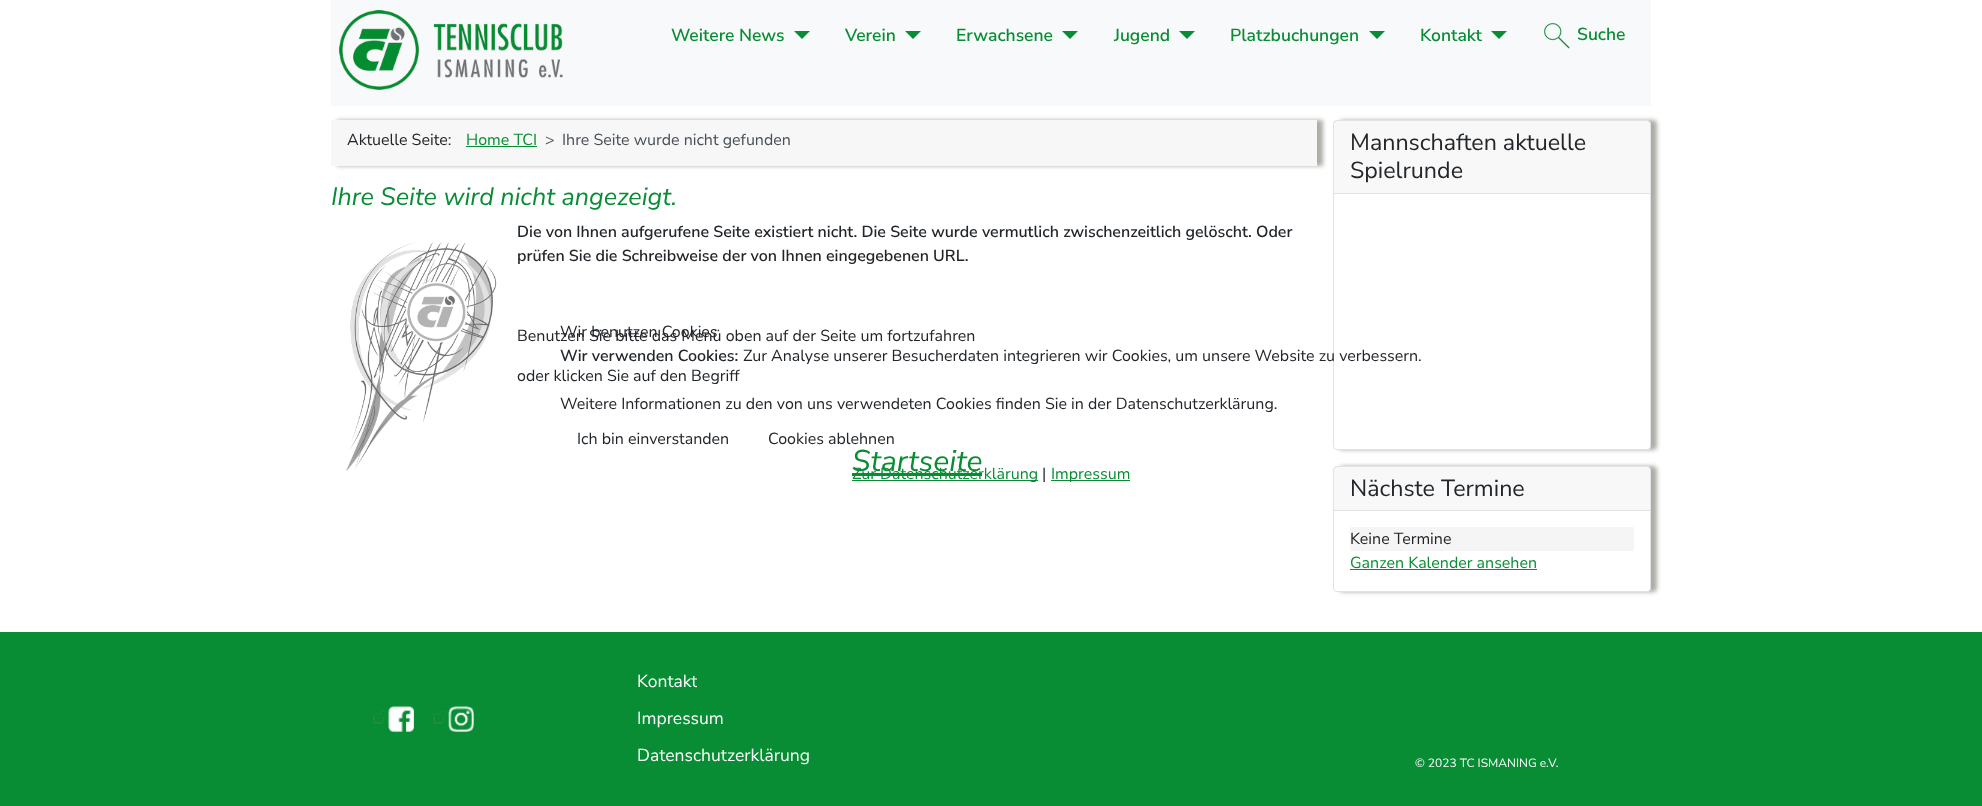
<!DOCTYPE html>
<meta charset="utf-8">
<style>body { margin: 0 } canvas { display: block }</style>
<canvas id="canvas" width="1982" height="806"></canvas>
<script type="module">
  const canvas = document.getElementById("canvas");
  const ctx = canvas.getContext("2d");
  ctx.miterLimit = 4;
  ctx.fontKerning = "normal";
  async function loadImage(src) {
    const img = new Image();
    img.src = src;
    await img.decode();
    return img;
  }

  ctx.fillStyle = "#ffffff";
  ctx.fillRect(0, 0, 1982, 806);
  ctx.fillStyle = "#f8f9fa";
  ctx.fillRect(331, 0, 1320, 106);
  ctx.drawImage(await loadImage("img1.png"), 339, 10, 224, 80);
  ctx.font = "600 17.5px Nunito Sans";
  ctx.fillStyle = "#098d34";
  ctx.fillText("Weitere News", 671, 41);
  ctx.beginPath();
  ctx.moveTo(794, 31);
  ctx.lineTo(810, 31);
  ctx.lineTo(802, 39);
  ctx.closePath();
  ctx.fill();
  ctx.fillText("Verein", 845, 41);
  ctx.beginPath();
  ctx.moveTo(905, 31);
  ctx.lineTo(921, 31);
  ctx.lineTo(913, 39);
  ctx.closePath();
  ctx.fill();
  ctx.fillText("Erwachsene", 956, 41);
  ctx.beginPath();
  ctx.moveTo(1062, 31);
  ctx.lineTo(1078, 31);
  ctx.lineTo(1070, 39);
  ctx.closePath();
  ctx.fill();
  ctx.fillText("Jugend", 1114, 41);
  ctx.beginPath();
  ctx.moveTo(1179, 31);
  ctx.lineTo(1195, 31);
  ctx.lineTo(1187, 39);
  ctx.closePath();
  ctx.fill();
  ctx.fillText("Platzbuchungen", 1230, 41);
  ctx.beginPath();
  ctx.moveTo(1369, 31);
  ctx.lineTo(1385, 31);
  ctx.lineTo(1377, 39);
  ctx.closePath();
  ctx.fill();
  ctx.fillText("Kontakt", 1420, 41);
  ctx.beginPath();
  ctx.moveTo(1491, 31);
  ctx.lineTo(1507, 31);
  ctx.lineTo(1499, 39);
  ctx.closePath();
  ctx.fill();
  ctx.drawImage(await loadImage("img2.png"), 1544, 23, 26, 26);
  ctx.fillText("Suche", 1577, 40);
  ctx.fillStyle = "rgba(20, 20, 0, 0.35)";
  ctx.filter = "blur(2px)";
  ctx.beginPath();
  ctx.rect(337, 120, 986, 46);
  ctx.fill();
  ctx.filter = "none";
  ctx.fillStyle = "#f7f7f7";
  ctx.fillRect(331, 120, 986, 46);
  ctx.font = "16px Nunito Sans";
  ctx.fillStyle = "#22262a";
  ctx.fillText("Aktuelle Seite:", 347, 145);
  ctx.fillStyle = "#098d34";
  ctx.fillText("Home TCI", 466, 145);
  ctx.fillRect(466, 146, 71, 1);
  ctx.fillStyle = "#575a5d";
  ctx.fillText(">", 545, 145);
  ctx.fillStyle = "#484f56";
  ctx.fillText("Ihre Seite wurde nicht gefunden", 562, 145);
  ctx.font = "italic 25.1px Nunito Sans";
  ctx.fillStyle = "#098d34";
  ctx.fillText("Ihre Seite wird nicht angezeigt.", 331, 205);
  ctx.font = "600 16px Nunito Sans";
  ctx.fillStyle = "#22262a";
  ctx.fillText("Die von Ihnen aufgerufene Seite existiert nicht. Die Seite wurde vermutlich zwischenzeitlich gelöscht. Oder", 517, 237);
  ctx.drawImage(await loadImage("img3.png"), 346, 242, 151, 229);
  ctx.fillText("prüfen Sie die Schreibweise der von Ihnen eingegebenen URL.", 517, 261);
  ctx.font = "16px Nunito Sans";
  ctx.fillText("Benutzen Sie bitte das Menü oben auf der Seite um fortzufahren", 517, 341);
  ctx.fillText("oder klicken Sie auf den Begriff", 517, 381);
  ctx.font = "italic 30px Nunito Sans";
  ctx.fillStyle = "#098d34";
  ctx.fillText("Startseite", 852, 471);
  ctx.fillRect(852, 473, 130, 3);
  ctx.fillStyle = "rgba(20, 20, 0, 0.35)";
  ctx.filter = "blur(2px)";
  ctx.beginPath();
  ctx.roundRect(1339, 120, 318, 330, 4);
  ctx.fill();
  ctx.filter = "none";
  ctx.fillStyle = "#ffffff";
  ctx.beginPath();
  ctx.roundRect(1333.5, 120.5, 317, 329, 3.5);
  ctx.fill();
  ctx.strokeStyle = "#dfe3e7";
  ctx.stroke();
  ctx.fillStyle = "rgba(34, 38, 42, 0.03)";
  ctx.fillRect(1334, 121, 316, 72);
  ctx.fillStyle = "#dfe3e7";
  ctx.fillRect(1334, 193, 316, 1);
  ctx.font = "23.25px Nunito Sans";
  ctx.fillStyle = "#22262a";
  ctx.fillText("Mannschaften aktuelle", 1350, 150);
  ctx.fillText("Spielrunde", 1350, 178);
  ctx.fillStyle = "rgba(20, 20, 0, 0.35)";
  ctx.filter = "blur(2px)";
  ctx.beginPath();
  ctx.roundRect(1339, 466, 318, 126, 4);
  ctx.fill();
  ctx.filter = "none";
  ctx.fillStyle = "#ffffff";
  ctx.beginPath();
  ctx.roundRect(1333.5, 466.5, 317, 125, 3.5);
  ctx.fill();
  ctx.stroke();
  ctx.fillStyle = "rgba(34, 38, 42, 0.03)";
  ctx.fillRect(1334, 467, 316, 43);
  ctx.fillStyle = "#dfe3e7";
  ctx.fillRect(1334, 510, 316, 1);
  ctx.fillStyle = "#22262a";
  ctx.fillText("Nächste Termine", 1350, 496);
  ctx.fillStyle = "#f5f5f5";
  ctx.fillRect(1350, 527, 284, 24);
  ctx.font = "16px Nunito Sans";
  ctx.fillStyle = "#22262a";
  ctx.fillText("Keine Termine", 1350, 544);
  ctx.fillStyle = "#098d34";
  ctx.fillText("Ganzen Kalender ansehen", 1350, 568);
  ctx.fillRect(1350, 569, 187, 1);
  ctx.fillStyle = "#22262a";
  ctx.fillText("Wir benutzen Cookies", 560, 337);
  ctx.font = "600 16px Nunito Sans";
  ctx.fillText("Wir verwenden Cookies:", 560, 361);
  ctx.font = "16px Nunito Sans";
  ctx.fillText("Zur Analyse unserer Besucherdaten integrieren wir Cookies, um unsere Website zu verbessern.", 743, 361);
  ctx.fillText("Weitere Informationen zu den von uns verwendeten Cookies finden Sie in der Datenschutzerklärung.", 560, 409);
  ctx.fillText("Ich bin einverstanden", 577, 444);
  ctx.fillText("Cookies ablehnen", 768, 444);
  ctx.fillStyle = "#098d34";
  ctx.fillRect(852, 480, 186, 1);
  ctx.fillText("Zur Datenschutzerklärung", 852, 479);
  ctx.fillStyle = "#22262a";
  ctx.fillText("|", 1042, 479);
  ctx.fillStyle = "#098d34";
  ctx.fillRect(1051, 480, 79, 1);
  ctx.fillText("Impressum", 1051, 479);
  ctx.fillRect(0, 632, 1982, 174);
  ctx.drawImage(await loadImage("img4.png"), 373, 711, 13, 13);
  ctx.drawImage(await loadImage("img5.png"), 388, 706, 26, 26);
  ctx.drawImage(await loadImage("img4.png"), 433, 711, 13, 13);
  ctx.drawImage(await loadImage("img6.png"), 448, 706, 26, 26);
  ctx.save();
  ctx.beginPath();
  ctx.rect(637, 672, 60, 20);
  ctx.clip();
  ctx.font = "17.5px Nunito Sans";
  ctx.fillStyle = "#ffffff";
  ctx.fillText("Kontakt", 637, 687);
  ctx.restore();
  ctx.font = "17.5px Nunito Sans";
  ctx.fillStyle = "#ffffff";
  ctx.fillText("Impressum", 637, 724);
  ctx.fillText("Datenschutzerklärung", 637, 761);
  ctx.font = "12px Nunito Sans";
  ctx.fillText("© 2023 TC ISMANING e.V.", 1415, 767);
</script>
